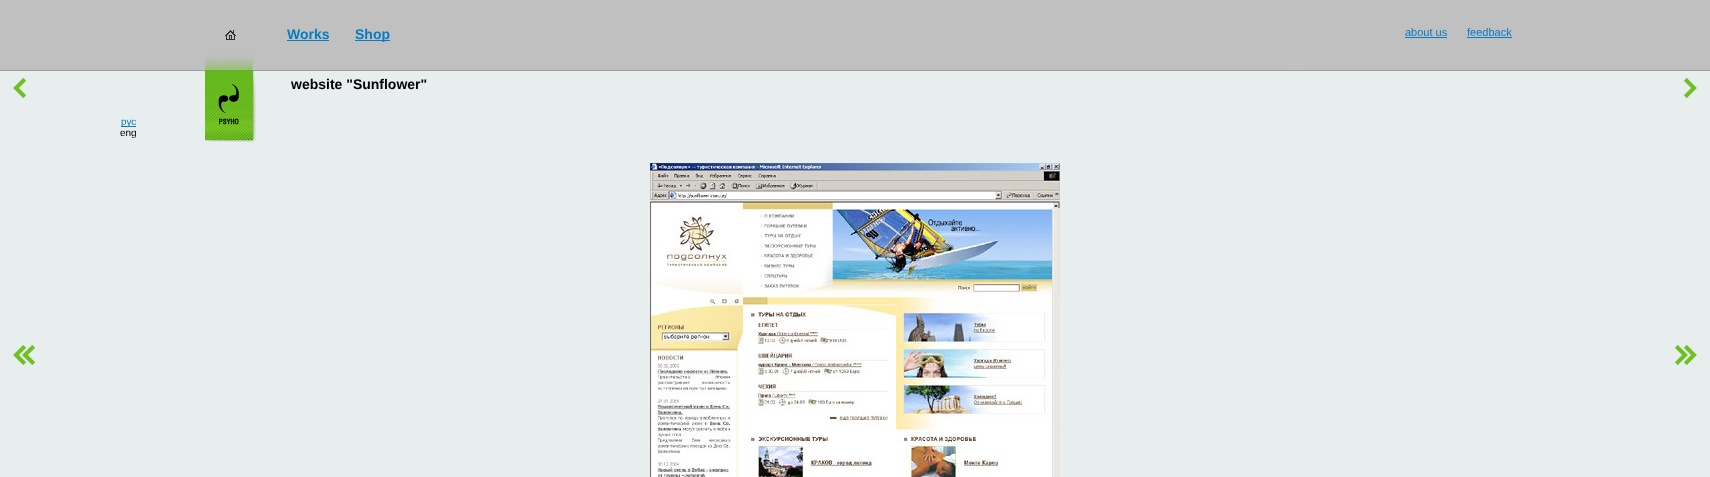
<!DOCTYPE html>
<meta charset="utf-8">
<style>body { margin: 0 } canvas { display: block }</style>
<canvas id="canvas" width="1710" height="477"></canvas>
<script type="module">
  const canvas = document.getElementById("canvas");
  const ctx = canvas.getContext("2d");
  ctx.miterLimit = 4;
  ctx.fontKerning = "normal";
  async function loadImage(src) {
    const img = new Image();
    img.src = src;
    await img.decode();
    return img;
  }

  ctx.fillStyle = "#e8edee";
  ctx.fillRect(0, 0, 1710, 477);
  ctx.fillStyle = "#c0c0c0";
  ctx.fillRect(0, 0, 1710, 70);
  ctx.fillStyle = "#9e9e9e";
  ctx.fillRect(0, 70, 1710, 1);
  ctx.drawImage(await loadImage("img1.png"), 225, 30, 11, 10);
  ctx.font = "bold 14px Liberation Sans";
  ctx.fillStyle = "#087cc2";
  ctx.fillText("Works", 287, 39);
  ctx.fillRect(287, 40, 42, 1);
  ctx.fillRect(355, 40, 35, 1);
  ctx.fillText("Shop", 355, 39);
  ctx.font = "11px Liberation Sans";
  ctx.fillText("about us", 1405, 36);
  ctx.fillRect(1405, 37, 42, 1);
  ctx.fillText("feedback", 1467, 36);
  ctx.fillRect(1467, 37, 45, 1);
  ctx.fillRect(121, 126, 15, 1);
  ctx.font = "10px Liberation Sans";
  ctx.fillText("рус", 121, 125);
  ctx.fillStyle = "#000000";
  ctx.fillText("eng", 120, 136);
  ctx.drawImage(await loadImage("img2.png"), 205, 54, 51, 88);
  ctx.drawImage(await loadImage("img3.png"), 1255, 71, 76, 2);
  ctx.drawImage(await loadImage("img4.png"), 13, 78, 13, 20);
  ctx.font = "bold 14px Liberation Sans";
  ctx.fillText("website \"Sunflower\"", 291, 89);
  ctx.drawImage(await loadImage("img5.png"), 1684, 78, 13, 20);
  ctx.drawImage(await loadImage("img6.png"), 650, 163, 410, 314);
  ctx.drawImage(await loadImage("img7.png"), 13, 345, 22, 20);
  ctx.drawImage(await loadImage("img8.png"), 1675, 345, 22, 20);
</script>
